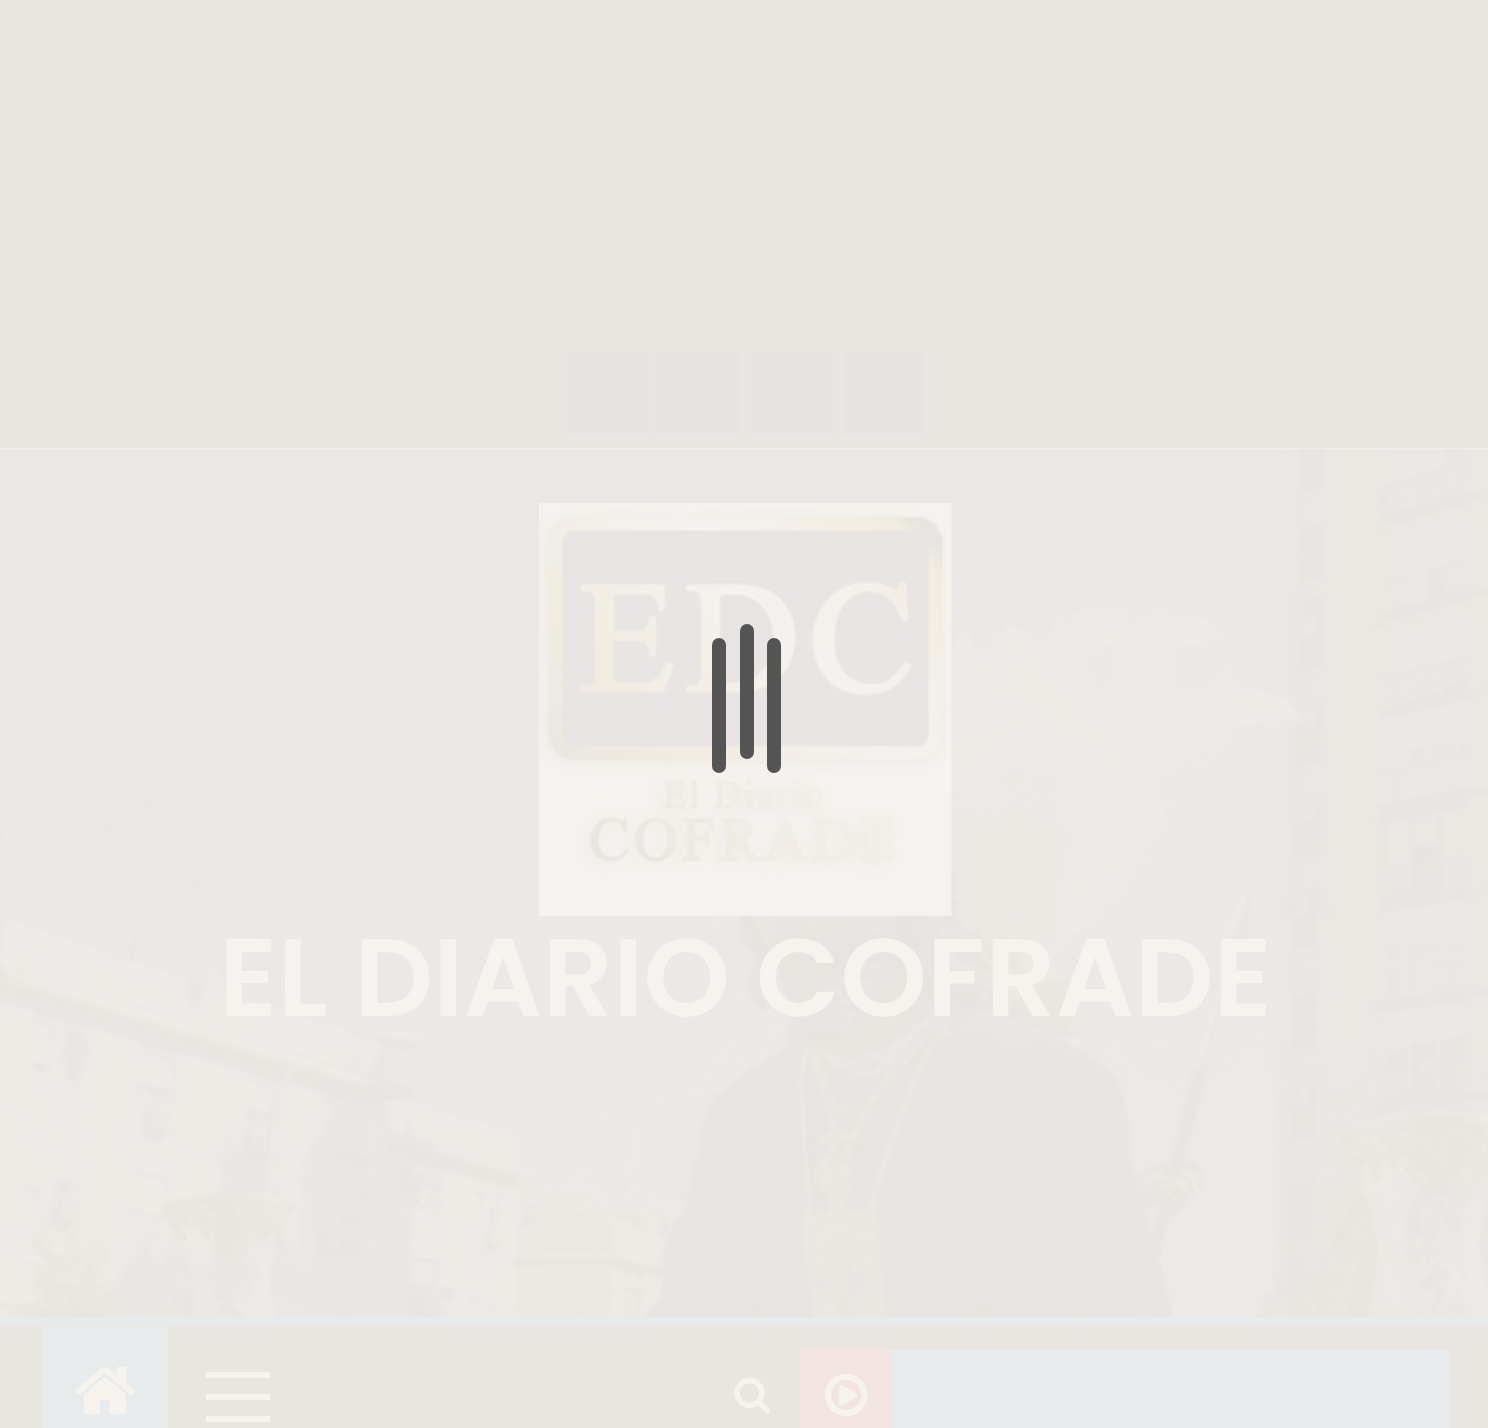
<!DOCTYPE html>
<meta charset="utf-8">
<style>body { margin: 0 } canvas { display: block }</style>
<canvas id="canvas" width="1488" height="1428"></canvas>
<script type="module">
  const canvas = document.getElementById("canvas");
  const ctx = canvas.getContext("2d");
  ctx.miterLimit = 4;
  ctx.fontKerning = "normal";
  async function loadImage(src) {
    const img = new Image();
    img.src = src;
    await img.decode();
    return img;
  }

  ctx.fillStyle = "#ffffff";
  ctx.fillRect(0, 0, 1488, 1428);
  ctx.drawImage(await loadImage("img1.png"), 0, 448, 1488, 869);
  ctx.drawImage(await loadImage("img2.png"), 539, 503, 413, 413);
  ctx.fillStyle = "rgba(74, 74, 74, 0.94)";
  ctx.beginPath();
  ctx.roundRect(740, 624, 14, 135, 7);
  ctx.fill();
  ctx.beginPath();
  ctx.roundRect(712, 638, 14, 135, 7);
  ctx.fill();
  ctx.beginPath();
  ctx.roundRect(767, 638, 14, 135, 7);
  ctx.fill();
  ctx.fillStyle = "#e9e6e2";
  ctx.fillRect(0, 0, 1488, 448);
  ctx.fillStyle = "#e6e3e0";
  ctx.fillRect(567, 352, 82, 83);
  ctx.fillRect(657, 352, 83, 83);
  ctx.fillRect(751, 352, 82, 83);
  ctx.fillRect(842, 352, 82, 83);
  ctx.font = "600 110px Poppins";
  ctx.fillStyle = "#f6f3ef";
  ctx.fillText("EL DIARIO COFRADE", 219, 1016);
  ctx.fillStyle = "#e9e6e2";
  ctx.fillRect(0, 1325, 1488, 103);
  ctx.fillStyle = "#e7ebec";
  ctx.fillRect(0, 1317, 1488, 8);
  ctx.fillRect(41, 1326, 127, 102);
  ctx.drawImage(await loadImage("img3.png"), 75, 1367, 60, 48);
  ctx.fillStyle = "#f6f3ef";
  ctx.fillRect(206, 1394, 64, 6);
  ctx.fillRect(206, 1372, 64, 6);
  ctx.fillRect(206, 1416, 64, 6);
  ctx.drawImage(await loadImage("img4.png"), 734, 1377, 36, 37);
  ctx.fillStyle = "#f2e5e1";
  ctx.fillRect(800, 1350, 91, 78);
  ctx.drawImage(await loadImage("img5.png"), 825, 1373, 43, 44);
  ctx.fillStyle = "#e7ebec";
  ctx.fillRect(891, 1350, 558, 78);
</script>
